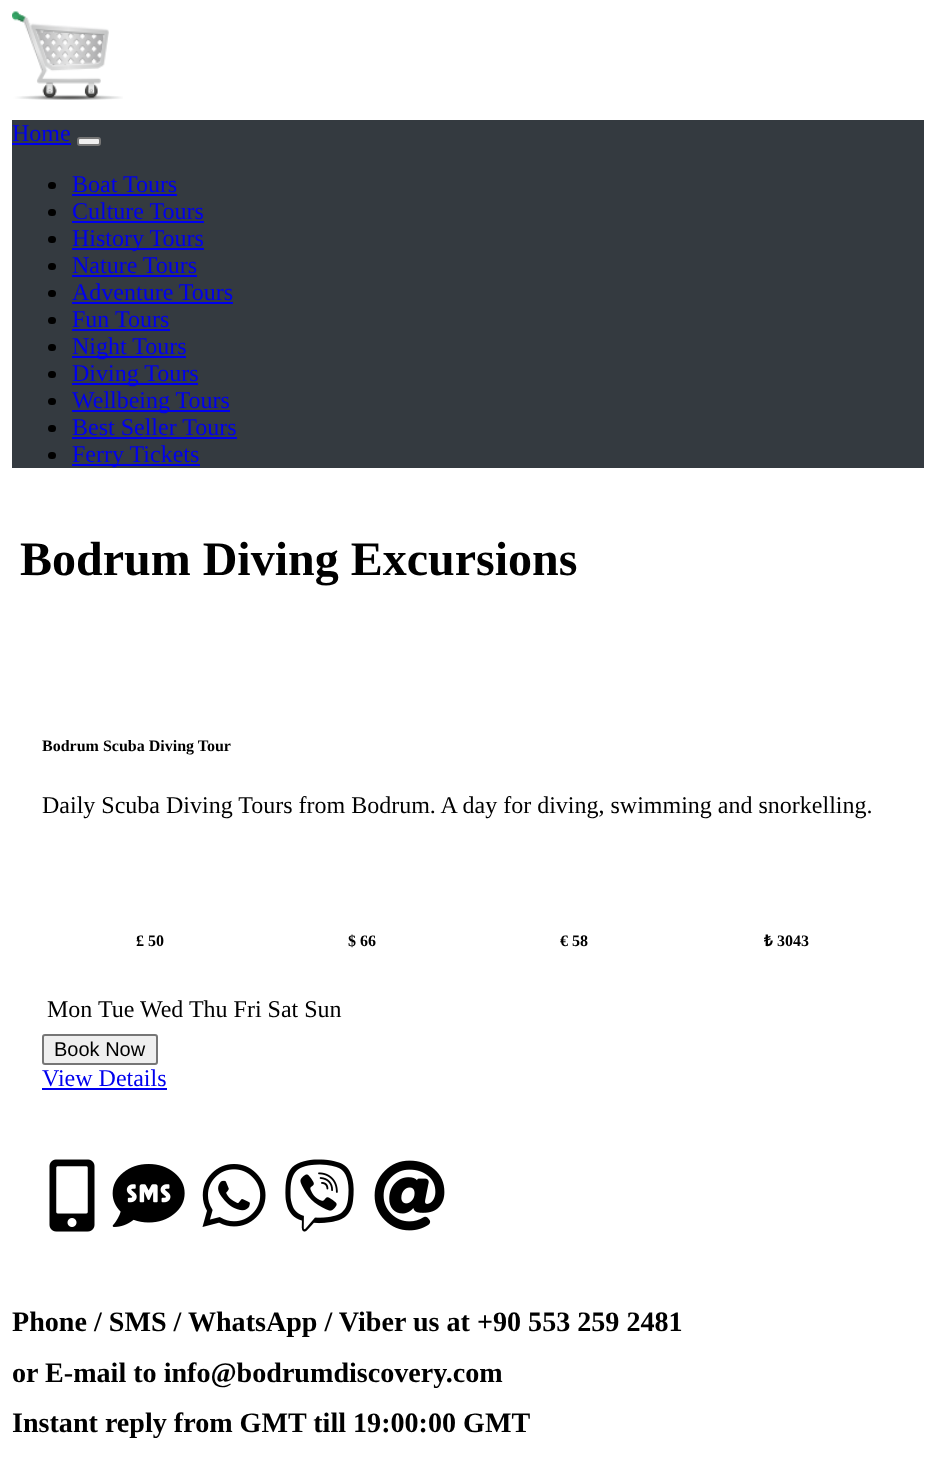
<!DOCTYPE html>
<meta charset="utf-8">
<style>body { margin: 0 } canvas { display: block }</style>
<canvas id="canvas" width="935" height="1467"></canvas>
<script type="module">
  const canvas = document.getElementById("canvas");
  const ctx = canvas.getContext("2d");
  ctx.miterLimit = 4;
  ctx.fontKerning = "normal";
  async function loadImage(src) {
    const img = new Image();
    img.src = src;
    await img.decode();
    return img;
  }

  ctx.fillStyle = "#ffffff";
  ctx.fillRect(0, 0, 935, 1467);
  ctx.drawImage(await loadImage("img1.png"), 12, 11, 111, 89);
  ctx.fillStyle = "#343a40";
  ctx.fillRect(12, 120, 912, 348);
  ctx.font = "24px Liberation Serif";
  ctx.fillStyle = "#0000ee";
  ctx.fillText("Home", 12, 141);
  ctx.fillRect(12, 143, 59, 2);
  ctx.fillStyle = "#efefef";
  ctx.beginPath();
  ctx.roundRect(78, 138, 22, 7, 2);
  ctx.fill();
  ctx.strokeStyle = "#767676";
  ctx.lineWidth = 2;
  ctx.stroke();
  ctx.fillStyle = "#000000";
  ctx.beginPath();
  ctx.roundRect(48, 182, 8, 7, 3.5);
  ctx.fill();
  ctx.fillStyle = "#0000ee";
  ctx.fillText("Boat Tours", 72, 192);
  ctx.fillRect(72, 194, 105, 2);
  ctx.fillStyle = "#000000";
  ctx.beginPath();
  ctx.roundRect(48, 209, 8, 7, 3.5);
  ctx.fill();
  ctx.fillStyle = "#0000ee";
  ctx.fillText("Culture Tours", 72, 219);
  ctx.fillRect(72, 221, 132, 2);
  ctx.fillStyle = "#000000";
  ctx.beginPath();
  ctx.roundRect(48, 236, 8, 7, 3.5);
  ctx.fill();
  ctx.fillStyle = "#0000ee";
  ctx.fillRect(72, 248, 132, 2);
  ctx.fillText("History Tours", 72, 246);
  ctx.fillStyle = "#000000";
  ctx.beginPath();
  ctx.roundRect(48, 263, 8, 7, 3.5);
  ctx.fill();
  ctx.fillStyle = "#0000ee";
  ctx.fillText("Nature Tours", 72, 273);
  ctx.fillRect(72, 275, 125, 2);
  ctx.fillStyle = "#000000";
  ctx.beginPath();
  ctx.roundRect(48, 290, 8, 7, 3.5);
  ctx.fill();
  ctx.fillStyle = "#0000ee";
  ctx.fillText("Adventure Tours", 72, 300);
  ctx.fillRect(72, 302, 161, 2);
  ctx.fillStyle = "#000000";
  ctx.beginPath();
  ctx.roundRect(48, 317, 8, 7, 3.5);
  ctx.fill();
  ctx.fillStyle = "#0000ee";
  ctx.fillText("Fun Tours", 72, 327);
  ctx.fillRect(72, 329, 98, 2);
  ctx.fillStyle = "#000000";
  ctx.beginPath();
  ctx.roundRect(48, 344, 8, 7, 3.5);
  ctx.fill();
  ctx.fillStyle = "#0000ee";
  ctx.fillRect(72, 356, 114, 2);
  ctx.fillText("Night Tours", 72, 354);
  ctx.fillStyle = "#000000";
  ctx.beginPath();
  ctx.roundRect(48, 371, 8, 7, 3.5);
  ctx.fill();
  ctx.fillStyle = "#0000ee";
  ctx.fillRect(72, 383, 126, 2);
  ctx.fillText("Diving Tours", 72, 381);
  ctx.fillStyle = "#000000";
  ctx.beginPath();
  ctx.roundRect(48, 398, 8, 7, 3.5);
  ctx.fill();
  ctx.fillStyle = "#0000ee";
  ctx.fillRect(72, 410, 158, 2);
  ctx.fillText("Wellbeing Tours", 72, 408);
  ctx.fillStyle = "#000000";
  ctx.beginPath();
  ctx.roundRect(48, 425, 8, 7, 3.5);
  ctx.fill();
  ctx.fillStyle = "#0000ee";
  ctx.fillText("Best Seller Tours", 72, 435);
  ctx.fillRect(72, 437, 165, 2);
  ctx.fillStyle = "#000000";
  ctx.beginPath();
  ctx.roundRect(48, 452, 8, 7, 3.5);
  ctx.fill();
  ctx.fillStyle = "#0000ee";
  ctx.fillRect(72, 464, 128, 2);
  ctx.fillText("Ferry Tickets", 72, 462);
  ctx.font = "bold 48px Liberation Serif";
  ctx.fillStyle = "#000000";
  ctx.fillText("Bodrum Diving Excursions", 20, 575);
  ctx.font = "bold 16px Liberation Serif";
  ctx.fillText("Bodrum Scuba Diving Tour", 42, 751);
  ctx.font = "24px Liberation Serif";
  ctx.fillText("Daily Scuba Diving Tours from Bodrum. A day for diving, swimming and snorkelling.", 42, 813);
  ctx.font = "bold 16px Liberation Serif";
  ctx.fillText("£ 50", 136, 946);
  ctx.fillText("$ 66", 348, 946);
  ctx.fillText("€ 58", 560, 946);
  ctx.font = "bold 16px Noto Sans";
  ctx.fillText("₺", 764, 946);
  ctx.font = "bold 16px Liberation Serif";
  ctx.fillText("3043", 777, 946);
  ctx.font = "24px Liberation Serif";
  ctx.fillText("Mon Tue Wed Thu Fri Sat Sun", 47, 1017);
  ctx.fillStyle = "#efefef";
  ctx.beginPath();
  ctx.roundRect(43, 1035, 114, 29, 2);
  ctx.fill();
  ctx.stroke();
  ctx.font = "20px Liberation Sans";
  ctx.fillStyle = "#000000";
  ctx.fillText("Book Now", 54, 1056);
  ctx.font = "24px Liberation Serif";
  ctx.fillStyle = "#0000ee";
  ctx.fillText("View Details", 42, 1086);
  ctx.fillRect(42, 1088, 125, 2);
  ctx.drawImage(await loadImage("img2.png"), 49, 1159, 46, 73);
  ctx.drawImage(await loadImage("img3.png"), 112, 1164, 73, 63);
  ctx.drawImage(await loadImage("img4.png"), 202, 1164, 64, 63);
  ctx.drawImage(await loadImage("img5.png"), 285, 1159, 69, 73);
  ctx.drawImage(await loadImage("img6.png"), 374, 1160, 71, 71);
  ctx.font = "bold 28.1px Liberation Serif";
  ctx.fillStyle = "#000000";
  ctx.fillText("Phone / SMS / WhatsApp / Viber us at +90 553 259 2481", 12, 1331);
  ctx.fillText("or E-mail to info@bodrumdiscovery.com", 12, 1382);
  ctx.fillText("Instant reply from GMT till 19:00:00 GMT", 12, 1432);
</script>
